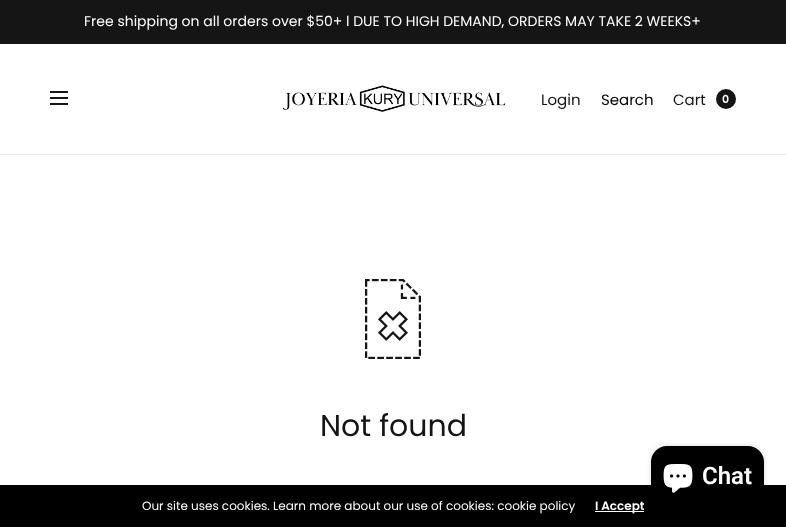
<!DOCTYPE html>
<meta charset="utf-8">
<style>body { margin: 0 } canvas { display: block }</style>
<canvas id="canvas" width="786" height="527"></canvas>
<script type="module">
  const canvas = document.getElementById("canvas");
  const ctx = canvas.getContext("2d");
  ctx.miterLimit = 4;
  ctx.fontKerning = "normal";
  async function loadImage(src) {
    const img = new Image();
    img.src = src;
    await img.decode();
    return img;
  }

  ctx.fillStyle = "#ffffff";
  ctx.fillRect(0, 0, 786, 527);
  ctx.fillStyle = "#151515";
  ctx.fillRect(0, 0, 786, 44);
  ctx.font = "14px Poppins";
  ctx.fillStyle = "#ffffff";
  ctx.fillText("Free shipping on all orders over $50+ l DUE TO HIGH DEMAND, ORDERS MAY TAKE 2 WEEKS+", 84, 26);
  ctx.fillStyle = "#eaeaea";
  ctx.fillRect(0, 154, 786, 1);
  ctx.fillStyle = "#151515";
  ctx.fillRect(50, 91, 18, 2);
  ctx.fillRect(50, 97, 18, 2);
  ctx.fillRect(50, 103, 18, 2);
  ctx.drawImage(await loadImage("img1.png"), 283, 85, 223, 27);
  ctx.font = "15px Poppins";
  ctx.fillText("Login", 541, 105);
  ctx.fillStyle = "#000000";
  ctx.fillText("Search", 601, 105);
  ctx.fillStyle = "#151515";
  ctx.fillText("Cart", 673, 105);
  ctx.beginPath();
  ctx.arc(726, 99, 10, 0, Math.PI * 2);
  ctx.fill();
  ctx.font = "600 11px Poppins";
  ctx.fillStyle = "#ffffff";
  ctx.fillText("0", 722, 103);
  ctx.drawImage(await loadImage("img2.png"), 365, 279, 56, 80);
  ctx.font = "30px Poppins";
  ctx.fillStyle = "#151515";
  ctx.fillText("Not found", 320, 436);
  ctx.fillStyle = "#000000";
  ctx.fillRect(0, 485, 786, 42);
  ctx.fillStyle = "#ffffff";
  ctx.fillRect(595, 511, 49, 1);
  ctx.fillStyle = "rgba(0, 0, 0, 0.15)";
  ctx.filter = "blur(2.5px)";
  ctx.beginPath();
  ctx.roundRect(651, 446, 113, 60, 16);
  ctx.fill();
  ctx.filter = "none";
  ctx.fillStyle = "#000000";
  ctx.beginPath();
  ctx.roundRect(651, 446, 113, 60, 16);
  ctx.fill();
  ctx.drawImage(await loadImage("img3.png"), 663, 464, 30, 29);
  ctx.font = "600 24px Roboto";
  ctx.fillStyle = "#ffffff";
  ctx.fillText("Chat", 702, 484);
  ctx.font = "12px Poppins";
  ctx.fillText("Our site uses cookies. Learn more about our use of cookies: cookie policy", 142, 510);
  ctx.font = "600 12px Poppins";
  ctx.fillText("I Accept", 595, 510);
</script>
